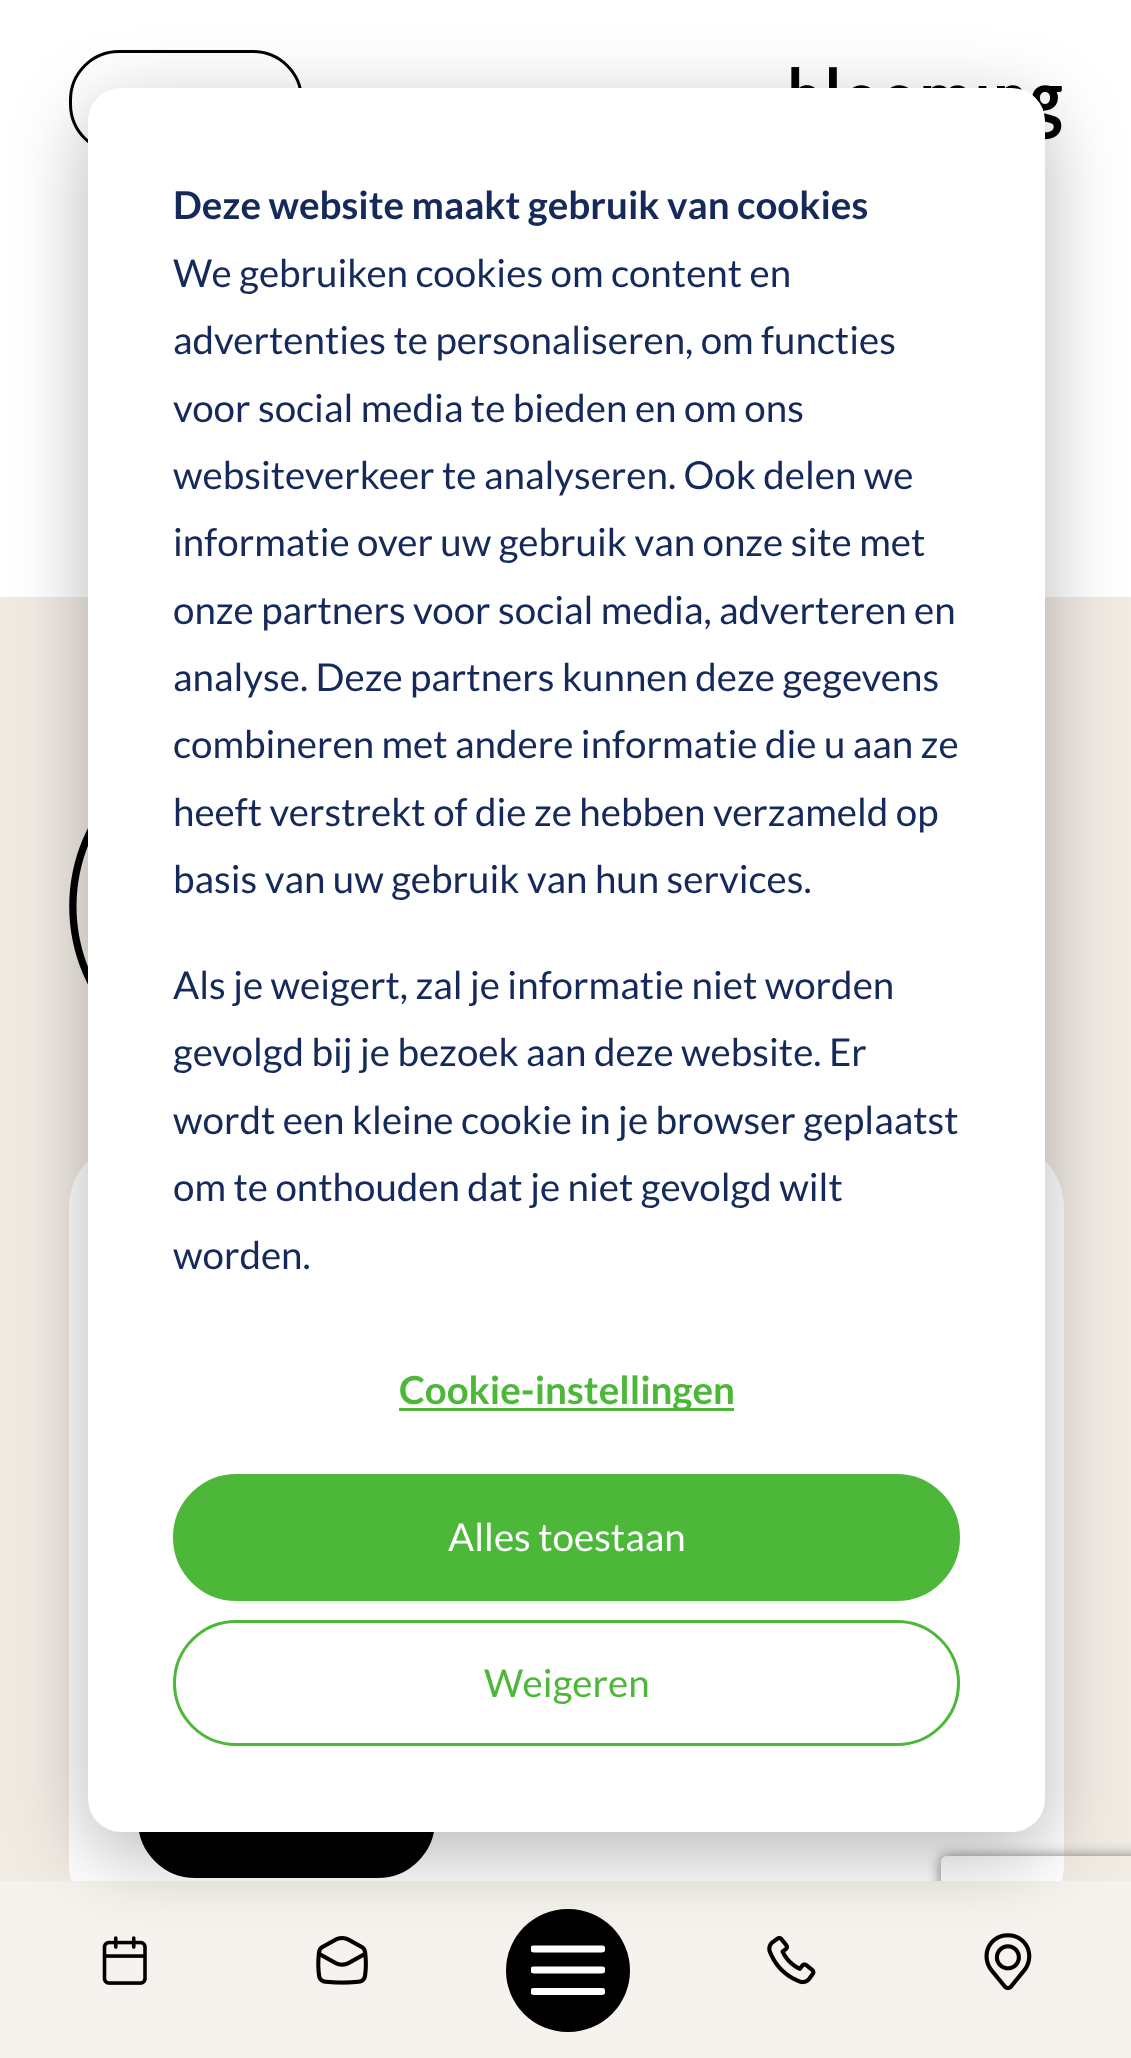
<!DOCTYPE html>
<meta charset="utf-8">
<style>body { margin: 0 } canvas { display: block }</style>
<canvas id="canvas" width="1131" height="2058"></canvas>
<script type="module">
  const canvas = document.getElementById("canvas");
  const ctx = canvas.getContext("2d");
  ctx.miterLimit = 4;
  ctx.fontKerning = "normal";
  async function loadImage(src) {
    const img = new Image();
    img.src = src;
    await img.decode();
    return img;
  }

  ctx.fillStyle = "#ffffff";
  ctx.fillRect(0, 0, 1131, 2058);
  ctx.beginPath();
  ctx.roundRect(70.5, 51.5, 231, 101, 48.5);
  ctx.strokeStyle = "#000000";
  ctx.lineWidth = 3;
  ctx.stroke();
  ctx.drawImage(await loadImage("img1.png"), 791, 67, 271, 73);
  ctx.fillStyle = "#f0ebe3";
  ctx.fillRect(0, 597, 1131, 1284);
  ctx.drawImage(await loadImage("img2.png"), 69, 828, 19, 157);
  ctx.fillStyle = "#ffffff";
  ctx.beginPath();
  ctx.roundRect(69, 1139, 995, 794, 69);
  ctx.fill();
  ctx.fillStyle = "#000000";
  ctx.beginPath();
  ctx.roundRect(139.5, 1764.5, 294, 112, 56);
  ctx.fill();
  ctx.stroke();
  ctx.save();
  ctx.beginPath();
  ctx.moveTo(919, 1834);
  ctx.lineTo(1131, 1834);
  ctx.lineTo(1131, 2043);
  ctx.lineTo(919, 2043);
  ctx.closePath();
  ctx.moveTo(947, 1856);
  ctx.lineTo(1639, 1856);
  ctx.bezierCurveTo(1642.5, 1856, 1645, 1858.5, 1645, 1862);
  ctx.lineTo(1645, 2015);
  ctx.bezierCurveTo(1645, 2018.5, 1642.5, 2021, 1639, 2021);
  ctx.lineTo(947, 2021);
  ctx.bezierCurveTo(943.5, 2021, 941, 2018.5, 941, 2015);
  ctx.lineTo(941, 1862);
  ctx.bezierCurveTo(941, 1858.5, 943.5, 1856, 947, 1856);
  ctx.closePath();
  ctx.clip("evenodd");
  ctx.fillStyle = "#808080";
  ctx.filter = "blur(7px)";
  ctx.beginPath();
  ctx.roundRect(941, 1856, 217, 165, 6);
  ctx.fill();
  ctx.filter = "none";
  ctx.restore();
  ctx.fillStyle = "#f6f3ee";
  ctx.fillRect(0, 1881, 1131, 177);
  ctx.drawImage(await loadImage("img3.png"), 102, 1936, 45, 49);
  ctx.drawImage(await loadImage("img4.png"), 316, 1936, 52, 49);
  ctx.fillStyle = "#000000";
  ctx.beginPath();
  ctx.roundRect(506, 1909, 124, 123, 61.5);
  ctx.fill();
  ctx.save();
  ctx.beginPath();
  ctx.rect(531, 1943, 74, 55);
  ctx.clip();
  ctx.beginPath();
  ctx.moveTo(533.5, 1970);
  ctx.lineTo(602, 1970);
  ctx.strokeStyle = "#ffffff";
  ctx.lineWidth = 6.8;
  ctx.lineCap = "round";
  ctx.stroke();
  ctx.beginPath();
  ctx.moveTo(533.5, 1949);
  ctx.lineTo(602, 1949);
  ctx.stroke();
  ctx.restore();
  ctx.drawImage(await loadImage("img5.png"), 767, 1936, 49, 49);
  ctx.drawImage(await loadImage("img6.png"), 984, 1933, 48, 58);
  ctx.fillStyle = "rgba(0, 0, 0, 0.28)";
  ctx.filter = "blur(38.5px)";
  ctx.beginPath();
  ctx.roundRect(88, 110, 957, 1744, 33);
  ctx.fill();
  ctx.filter = "none";
  ctx.fillStyle = "#ffffff";
  ctx.beginPath();
  ctx.roundRect(88, 88, 957, 1744, 33);
  ctx.fill();
  ctx.font = "bold 38.5px Lato";
  ctx.fillStyle = "#15295a";
  ctx.fillText("Deze website maakt gebruik van cookies", 173, 219);
  ctx.font = "38.5px Lato";
  ctx.fillText("We gebruiken cookies om content en", 173, 287);
  ctx.fillText("advertenties te personaliseren, om functies", 173, 354);
  ctx.fillText("voor social media te bieden en om ons", 173, 422);
  ctx.fillText("websiteverkeer te analyseren. Ook delen we", 173, 489);
  ctx.fillText("informatie over uw gebruik van onze site met", 173, 556);
  ctx.fillText("onze partners voor social media, adverteren en", 173, 624);
  ctx.fillText("analyse. Deze partners kunnen deze gegevens", 173, 691);
  ctx.fillText("combineren met andere informatie die u aan ze", 173, 758);
  ctx.fillText("heeft verstrekt of die ze hebben verzameld op", 173, 826);
  ctx.fillText("basis van uw gebruik van hun services.", 173, 893);
  ctx.fillText("Als je weigert, zal je informatie niet worden", 173, 999);
  ctx.fillText("gevolgd bij je bezoek aan deze website. Er", 173, 1066);
  ctx.fillText("wordt een kleine cookie in je browser geplaatst", 173, 1134);
  ctx.fillText("om te onthouden dat je niet gevolgd wilt", 173, 1201);
  ctx.fillText("worden.", 173, 1269);
  ctx.fillStyle = "#4db739";
  ctx.fillRect(399, 1408, 335, 3);
  ctx.font = "bold 38.5px Lato";
  ctx.fillText("Cookie-instellingen", 399, 1404);
  ctx.beginPath();
  ctx.roundRect(174.5, 1475.5, 784, 124, 62);
  ctx.fill();
  ctx.strokeStyle = "#4db739";
  ctx.stroke();
  ctx.font = "38.5px Lato";
  ctx.fillStyle = "#ffffff";
  ctx.fillText("Alles toestaan", 448, 1551);
  ctx.beginPath();
  ctx.roundRect(174.5, 1621.5, 784, 123, 61.5);
  ctx.stroke();
  ctx.fillStyle = "#4db739";
  ctx.fillText("Weigeren", 484, 1697);
  ctx.save();
  ctx.beginPath();
  ctx.rect(531, 1943, 74, 55);
  ctx.clip();
  ctx.beginPath();
  ctx.moveTo(533.5, 1991.5);
  ctx.lineTo(602, 1991.5);
  ctx.strokeStyle = "#ffffff";
  ctx.lineWidth = 6.8;
  ctx.lineCap = "round";
  ctx.stroke();
  ctx.restore();
</script>
